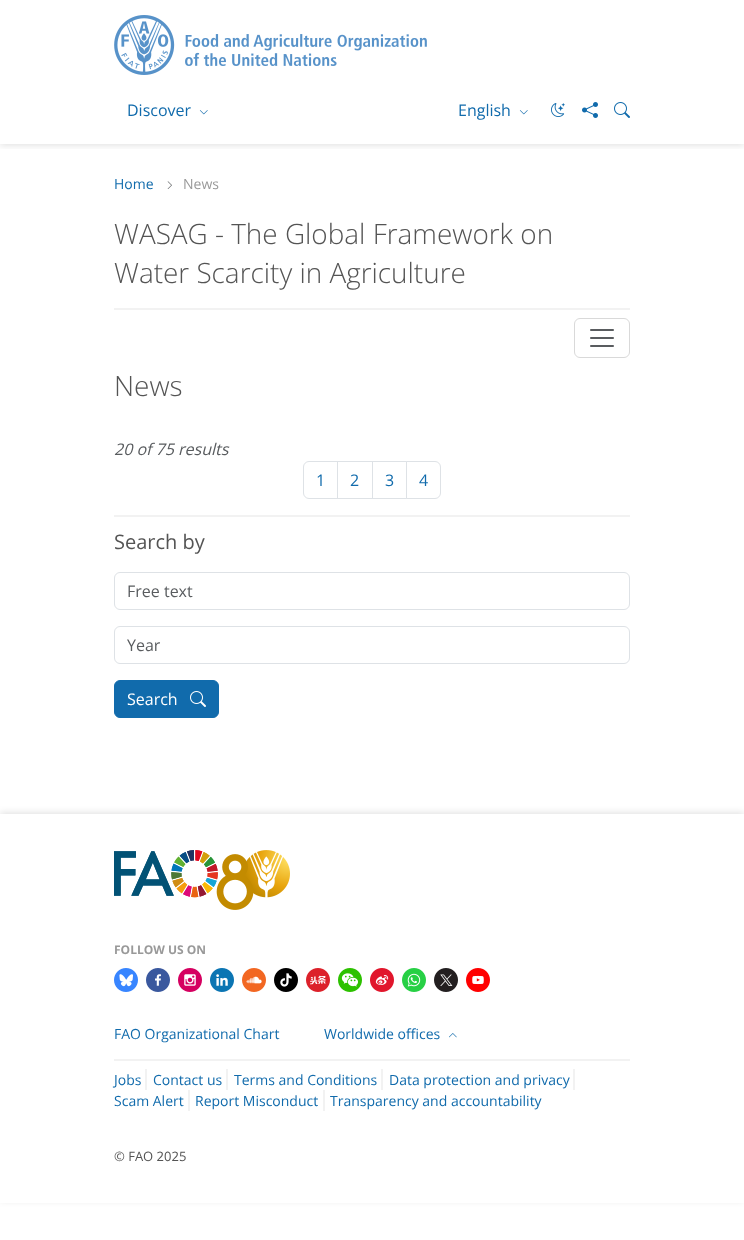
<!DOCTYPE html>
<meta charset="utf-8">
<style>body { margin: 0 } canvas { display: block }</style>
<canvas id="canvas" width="744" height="1240"></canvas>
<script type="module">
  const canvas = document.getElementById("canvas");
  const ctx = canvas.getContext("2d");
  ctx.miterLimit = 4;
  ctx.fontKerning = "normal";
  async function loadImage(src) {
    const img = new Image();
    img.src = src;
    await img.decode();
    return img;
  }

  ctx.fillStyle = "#ffffff";
  ctx.fillRect(0, 0, 744, 1240);
  ctx.save();
  ctx.beginPath();
  ctx.rect(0, 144, 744, 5);
  ctx.clip();
  ctx.fillStyle = "rgba(0, 0, 0, 0.1)";
  ctx.filter = "blur(3px)";
  ctx.beginPath();
  ctx.rect(0, 2, 744, 144);
  ctx.fill();
  ctx.filter = "none";
  ctx.restore();
  ctx.drawImage(await loadImage("img1.png"), 114, 15, 313, 60);
  ctx.font = "16px Open Sans";
  ctx.fillStyle = "#116bac";
  ctx.fillText("Discover", 127, 116);
  ctx.drawImage(await loadImage("img2.png"), 199, 110, 9, 5);
  ctx.fillText("English", 458, 116);
  ctx.drawImage(await loadImage("img2.png"), 519, 110, 9, 5);
  ctx.drawImage(await loadImage("img3.png"), 551, 103, 14, 14);
  ctx.drawImage(await loadImage("img4.png"), 582, 102, 16, 16);
  ctx.drawImage(await loadImage("img5.png"), 614, 102, 16, 16);
  ctx.font = "14px Open Sans";
  ctx.fillText("Home", 114, 189);
  ctx.drawImage(await loadImage("img6.png"), 167, 181, 5, 8);
  ctx.fillStyle = "#999999";
  ctx.fillText("News", 183, 189);
  ctx.fillStyle = "#f2f2f2";
  ctx.fillRect(114, 308, 516, 2);
  ctx.font = "300 27.9px Open Sans";
  ctx.fillStyle = "#545454";
  ctx.fillText("WASAG - The Global Framework on", 114, 244);
  ctx.fillText("Water Scarcity in Agriculture", 114, 283);
  ctx.beginPath();
  ctx.roundRect(574.5, 318.5, 55, 39, 5.5);
  ctx.strokeStyle = "#d9d9d9";
  ctx.stroke();
  ctx.drawImage(await loadImage("img7.png"), 590, 329, 24, 18);
  ctx.fillText("News", 114, 396);
  ctx.font = "italic 16px Open Sans";
  ctx.fillStyle = "#595c5f";
  ctx.fillText("20 of 75 results", 114, 455);
  ctx.beginPath();
  ctx.roundRect(303.5, 461.5, 34, 37, [5.5, 0, 0, 5.5]);
  ctx.strokeStyle = "#dee2e6";
  ctx.stroke();
  ctx.font = "16px Open Sans";
  ctx.fillStyle = "#116bac";
  ctx.fillText("1", 316, 486);
  ctx.strokeRect(337.5, 461.5, 35, 37);
  ctx.fillText("2", 350, 486);
  ctx.strokeRect(372.5, 461.5, 34, 37);
  ctx.fillText("3", 385, 486);
  ctx.fillStyle = "#ffffff";
  ctx.beginPath();
  ctx.roundRect(406.5, 461.5, 34, 37, [0, 5.5, 5.5, 0]);
  ctx.fill();
  ctx.stroke();
  ctx.fillStyle = "#116bac";
  ctx.fillText("4", 419, 486);
  ctx.fillStyle = "#f2f2f2";
  ctx.fillRect(114, 515, 516, 2);
  ctx.font = "20px Open Sans";
  ctx.fillStyle = "#545454";
  ctx.fillText("Search by", 114, 549);
  ctx.beginPath();
  ctx.roundRect(114.5, 572.5, 515, 37, 5.5);
  ctx.stroke();
  ctx.font = "16px Open Sans";
  ctx.fillStyle = "#595c5f";
  ctx.fillText("Free text", 127, 597);
  ctx.beginPath();
  ctx.roundRect(114.5, 626.5, 515, 37, 5.5);
  ctx.stroke();
  ctx.fillText("Year", 127, 651);
  ctx.fillStyle = "#116bac";
  ctx.beginPath();
  ctx.roundRect(114.5, 680.5, 104, 37, 5.5);
  ctx.fill();
  ctx.strokeStyle = "#116bac";
  ctx.stroke();
  ctx.fillStyle = "#ffffff";
  ctx.fillText("Search", 127, 705);
  ctx.drawImage(await loadImage("img8.png"), 190, 691, 16, 16);
  ctx.save();
  ctx.beginPath();
  ctx.moveTo(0, 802);
  ctx.lineTo(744, 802);
  ctx.lineTo(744, 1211);
  ctx.lineTo(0, 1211);
  ctx.closePath();
  ctx.moveTo(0, 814);
  ctx.lineTo(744, 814);
  ctx.lineTo(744, 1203);
  ctx.lineTo(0, 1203);
  ctx.closePath();
  ctx.clip("evenodd");
  ctx.fillStyle = "rgba(0, 0, 0, 0.1)";
  ctx.filter = "blur(3px)";
  ctx.beginPath();
  ctx.rect(0, 812, 744, 389);
  ctx.fill();
  ctx.filter = "none";
  ctx.restore();
  ctx.drawImage(await loadImage("img9.png"), 114, 850, 176, 60);
  ctx.font = "bold 12px Open Sans";
  ctx.fillStyle = "#999999";
  ctx.fillText("FOLLOW US ON", 114, 954);
  ctx.drawImage(await loadImage("img10.png"), 114, 968, 24, 24);
  ctx.drawImage(await loadImage("img11.png"), 146, 968, 24, 24);
  ctx.drawImage(await loadImage("img12.png"), 178, 968, 24, 24);
  ctx.drawImage(await loadImage("img13.png"), 210, 968, 24, 24);
  ctx.drawImage(await loadImage("img14.png"), 242, 968, 24, 24);
  ctx.drawImage(await loadImage("img15.png"), 274, 968, 24, 24);
  ctx.drawImage(await loadImage("img16.png"), 306, 968, 24, 24);
  ctx.drawImage(await loadImage("img17.png"), 338, 968, 24, 24);
  ctx.drawImage(await loadImage("img18.png"), 370, 968, 24, 24);
  ctx.drawImage(await loadImage("img19.png"), 402, 968, 24, 24);
  ctx.drawImage(await loadImage("img20.png"), 434, 968, 24, 24);
  ctx.drawImage(await loadImage("img21.png"), 466, 968, 24, 24);
  ctx.font = "14px Open Sans";
  ctx.fillStyle = "#116bac";
  ctx.fillText("FAO Organizational Chart", 114, 1039);
  ctx.fillText("Worldwide offices", 324, 1039);
  ctx.drawImage(await loadImage("img22.png"), 449, 1033, 8, 5);
  ctx.fillStyle = "#f2f2f2";
  ctx.fillRect(114, 1059, 516, 2);
  ctx.fillStyle = "#116bac";
  ctx.fillText("Jobs", 114, 1085);
  ctx.fillStyle = "#f2f2f2";
  ctx.fillRect(145, 1069, 2, 21);
  ctx.fillStyle = "#116bac";
  ctx.fillText("Contact us", 153, 1085);
  ctx.fillStyle = "#f2f2f2";
  ctx.fillRect(226, 1069, 2, 21);
  ctx.fillStyle = "#116bac";
  ctx.fillText("Terms and Conditions", 234, 1085);
  ctx.fillStyle = "#f2f2f2";
  ctx.fillRect(381, 1069, 2, 21);
  ctx.fillStyle = "#116bac";
  ctx.fillText("Data protection and privacy", 389, 1085);
  ctx.fillStyle = "#f2f2f2";
  ctx.fillRect(573, 1069, 2, 21);
  ctx.fillStyle = "#116bac";
  ctx.fillText("Scam Alert", 114, 1106);
  ctx.fillStyle = "#f2f2f2";
  ctx.fillRect(188, 1090, 2, 21);
  ctx.fillStyle = "#116bac";
  ctx.fillText("Report Misconduct", 195, 1106);
  ctx.fillStyle = "#f2f2f2";
  ctx.fillRect(323, 1090, 2, 21);
  ctx.fillStyle = "#116bac";
  ctx.fillText("Transparency and accountability", 330, 1106);
  ctx.font = "13px Open Sans";
  ctx.fillStyle = "#545454";
  ctx.fillText("© FAO 2025", 114, 1161);
</script>
